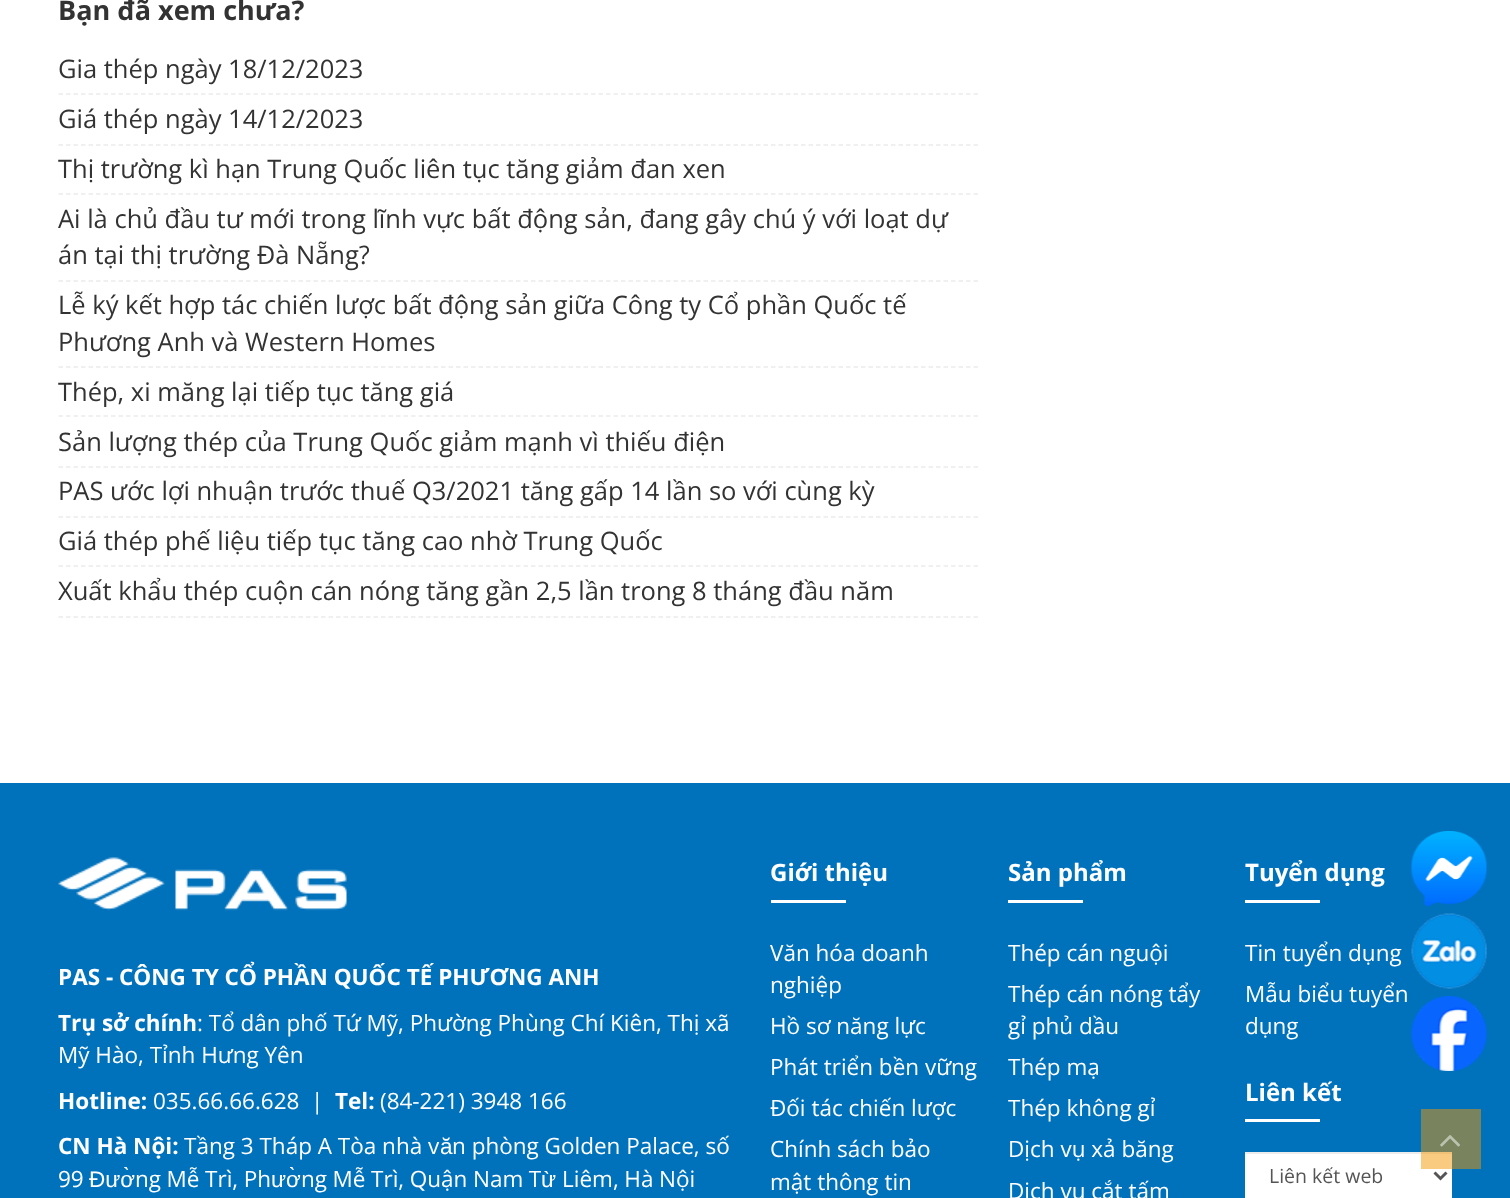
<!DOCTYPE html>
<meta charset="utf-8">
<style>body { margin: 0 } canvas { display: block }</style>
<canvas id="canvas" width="1510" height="1198"></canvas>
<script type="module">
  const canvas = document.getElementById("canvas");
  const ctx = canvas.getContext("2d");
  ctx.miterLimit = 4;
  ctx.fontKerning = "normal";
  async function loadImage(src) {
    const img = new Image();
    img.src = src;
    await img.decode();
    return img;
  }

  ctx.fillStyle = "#ffffff";
  ctx.fillRect(0, 0, 1510, 1198);
  ctx.font = "bold 27px Open Sans";
  ctx.fillStyle = "#333333";
  ctx.fillText("Bạn đã xem chưa?", 58, 20);
  ctx.beginPath();
  ctx.moveTo(58.5, 94);
  ctx.lineTo(978, 94);
  ctx.strokeStyle = "#ebebeb";
  ctx.lineWidth = 1.5;
  ctx.setLineDash([4.5, 3]);
  ctx.stroke();
  ctx.font = "25.5px Open Sans";
  ctx.fillText("Gia thép ngày 18/12/2023", 58, 78);
  ctx.beginPath();
  ctx.moveTo(58.5, 145);
  ctx.lineTo(978, 145);
  ctx.stroke();
  ctx.fillText("Giá thép ngày 14/12/2023", 58, 128);
  ctx.beginPath();
  ctx.moveTo(58.5, 194);
  ctx.lineTo(978, 194);
  ctx.stroke();
  ctx.fillText("Thị trường kì hạn Trung Quốc liên tục tăng giảm đan xen", 58, 178);
  ctx.beginPath();
  ctx.moveTo(58.5, 281);
  ctx.lineTo(978, 281);
  ctx.stroke();
  ctx.fillText("Ai là chủ đầu tư mới trong lĩnh vực bất động sản, đang gây chú ý với loạt dự", 58, 228);
  ctx.fillText("án tại thị trường Đà Nẵng?", 58, 264);
  ctx.beginPath();
  ctx.moveTo(58.5, 367);
  ctx.lineTo(978, 367);
  ctx.stroke();
  ctx.fillText("Lễ ký kết hợp tác chiến lược bất động sản giữa Công ty Cổ phần Quốc tế", 58, 314);
  ctx.fillText("Phương Anh và Western Homes", 58, 351);
  ctx.beginPath();
  ctx.moveTo(58.5, 416);
  ctx.lineTo(978, 416);
  ctx.stroke();
  ctx.fillText("Thép, xi măng lại tiếp tục tăng giá", 58, 401);
  ctx.beginPath();
  ctx.moveTo(58.5, 467);
  ctx.lineTo(978, 467);
  ctx.stroke();
  ctx.fillText("Sản lượng thép của Trung Quốc giảm mạnh vì thiếu điện", 58, 451);
  ctx.beginPath();
  ctx.moveTo(58.5, 517);
  ctx.lineTo(978, 517);
  ctx.stroke();
  ctx.fillText("PAS ước lợi nhuận trước thuế Q3/2021 tăng gấp 14 lần so với cùng kỳ", 58, 500);
  ctx.beginPath();
  ctx.moveTo(58.5, 566);
  ctx.lineTo(978, 566);
  ctx.stroke();
  ctx.fillText("Giá thép phế liệu tiếp tục tăng cao nhờ Trung Quốc", 58, 550);
  ctx.beginPath();
  ctx.moveTo(58.5, 617);
  ctx.lineTo(978, 617);
  ctx.stroke();
  ctx.fillText("Xuất khẩu thép cuộn cán nóng tăng gần 2,5 lần trong 8 tháng đầu năm", 58, 600);
  ctx.fillStyle = "#0072bc";
  ctx.fillRect(0, 783, 1510, 415);
  ctx.fillStyle = "#79845e";
  ctx.fillRect(1421, 1109, 60, 60);
  ctx.drawImage(await loadImage("img1.png"), 58, 857, 289, 54);
  ctx.drawImage(await loadImage("img2.png"), 1411, 831, 76, 75);
  ctx.drawImage(await loadImage("img3.png"), 1411, 913, 76, 76);
  ctx.drawImage(await loadImage("img4.png"), 1411, 996, 76, 75);
  ctx.font = "bold 22.5px Open Sans";
  ctx.fillStyle = "#ffffff";
  ctx.fillText("PAS - CÔNG TY CỔ PHẦN QUỐC TẾ PHƯƠNG ANH", 58, 985);
  ctx.fillText("Trụ sở chính", 58, 1031);
  ctx.font = "22.5px Open Sans";
  ctx.fillText(": Tổ dân phố Tứ Mỹ, Phường Phùng Chí Kiên, Thị xã", 197, 1031);
  ctx.fillText("Mỹ Hào, Tỉnh Hưng Yên", 58, 1063);
  ctx.font = "bold 22.5px Open Sans";
  ctx.fillText("Hotline:", 58, 1109);
  ctx.font = "22.5px Open Sans";
  ctx.fillText("035.66.66.628  |", 153, 1109);
  ctx.font = "bold 22.5px Open Sans";
  ctx.fillText("Tel:", 335, 1109);
  ctx.font = "22.5px Open Sans";
  ctx.fillText("(84-221) 3948 166", 380, 1109);
  ctx.font = "bold 22.5px Open Sans";
  ctx.fillText("CN Hà Nội:", 58, 1154);
  ctx.font = "22.5px Open Sans";
  ctx.fillText("Tầng 3 Tháp A Tòa nhà v", 184, 1154);
  ctx.font = "22.5px Liberation Sans";
  ctx.fillText("ă", 440, 1154);
  ctx.font = "22.5px Open Sans";
  ctx.fillText("n phòng Golden Palace, số", 452, 1154);
  ctx.fillText("99", 58, 1187);
  ctx.font = "22.5px Liberation Sans";
  ctx.fillText("Đườ", 89, 1187);
  ctx.wordSpacing = "-0.25px";
  ctx.font = "22.5px Open Sans";
  ctx.fillText("ng Mễ Trì, Ph", 135, 1187);
  ctx.wordSpacing = "0px";
  ctx.font = "22.5px Liberation Sans";
  ctx.fillText("ườ", 271, 1187);
  ctx.wordSpacing = "-0.25px";
  ctx.font = "22.5px Open Sans";
  ctx.fillText("ng Mễ Trì, Quận Nam T", 301, 1187);
  ctx.wordSpacing = "0px";
  ctx.font = "22.5px Liberation Sans";
  ctx.fillText("ừ", 541, 1187);
  ctx.wordSpacing = "-0.25px";
  ctx.font = "22.5px Open Sans";
  ctx.fillText("Liêm, Hà Nội", 562, 1187);
  ctx.wordSpacing = "0px";
  ctx.font = "bold 24px Open Sans";
  ctx.fillText("Giới thiệu", 770, 881);
  ctx.fillRect(771, 900, 75, 3);
  ctx.font = "22.5px Open Sans";
  ctx.fillText("Văn hóa doanh", 770, 961);
  ctx.fillText("nghiệp", 770, 993);
  ctx.fillText("Hồ sơ năng lực", 770, 1034);
  ctx.fillText("Phát triển bền vững", 770, 1075);
  ctx.fillText("Đối tác chiến lược", 770, 1116);
  ctx.fillText("Chính sách bảo", 770, 1157);
  ctx.fillText("mật thông tin", 770, 1190);
  ctx.font = "bold 24px Open Sans";
  ctx.fillText("Sản phẩm", 1008, 881);
  ctx.fillRect(1008, 900, 75, 3);
  ctx.font = "22.5px Open Sans";
  ctx.fillText("Thép cán nguội", 1008, 961);
  ctx.fillText("Thép cán nóng tẩy", 1008, 1002);
  ctx.fillText("gỉ phủ dầu", 1008, 1034);
  ctx.fillText("Thép mạ", 1008, 1075);
  ctx.fillText("Thép không gỉ", 1008, 1116);
  ctx.fillText("Dịch vụ xả băng", 1008, 1157);
  ctx.fillText("Dịch vụ cắt tấm", 1008, 1199);
  ctx.font = "bold 24px Open Sans";
  ctx.fillText("Tuyển dụng", 1245, 881);
  ctx.fillRect(1245, 900, 75, 3);
  ctx.font = "22.5px Open Sans";
  ctx.fillText("Tin tuyển dụng", 1245, 961);
  ctx.fillText("Mẫu biểu tuyển", 1245, 1002);
  ctx.fillText("dụng", 1245, 1034);
  ctx.font = "bold 24px Open Sans";
  ctx.fillText("Liên kết", 1245, 1101);
  ctx.fillRect(1245, 1119, 75, 3);
  ctx.fillRect(1245, 1154, 207, 44);
  ctx.fillStyle = "#f9cb80";
  ctx.fillRect(1421, 1154, 31, 15);
  ctx.fillStyle = "#ececec";
  ctx.fillRect(1245, 1152, 176, 2);
  ctx.fillStyle = "#efc176";
  ctx.fillRect(1421, 1152, 31, 2);
  ctx.beginPath();
  ctx.moveTo(1434.5, 1172.5);
  ctx.lineTo(1440.5, 1178.5);
  ctx.lineTo(1446.5, 1172.5);
  ctx.strokeStyle = "#555555";
  ctx.lineWidth = 3;
  ctx.setLineDash([]);
  ctx.stroke();
  ctx.font = "19.5px Open Sans";
  ctx.fillStyle = "#555555";
  ctx.fillText("Liên kết web", 1269, 1183);
  ctx.drawImage(await loadImage("img5.png"), 1440, 1135, 20, 12);
</script>
